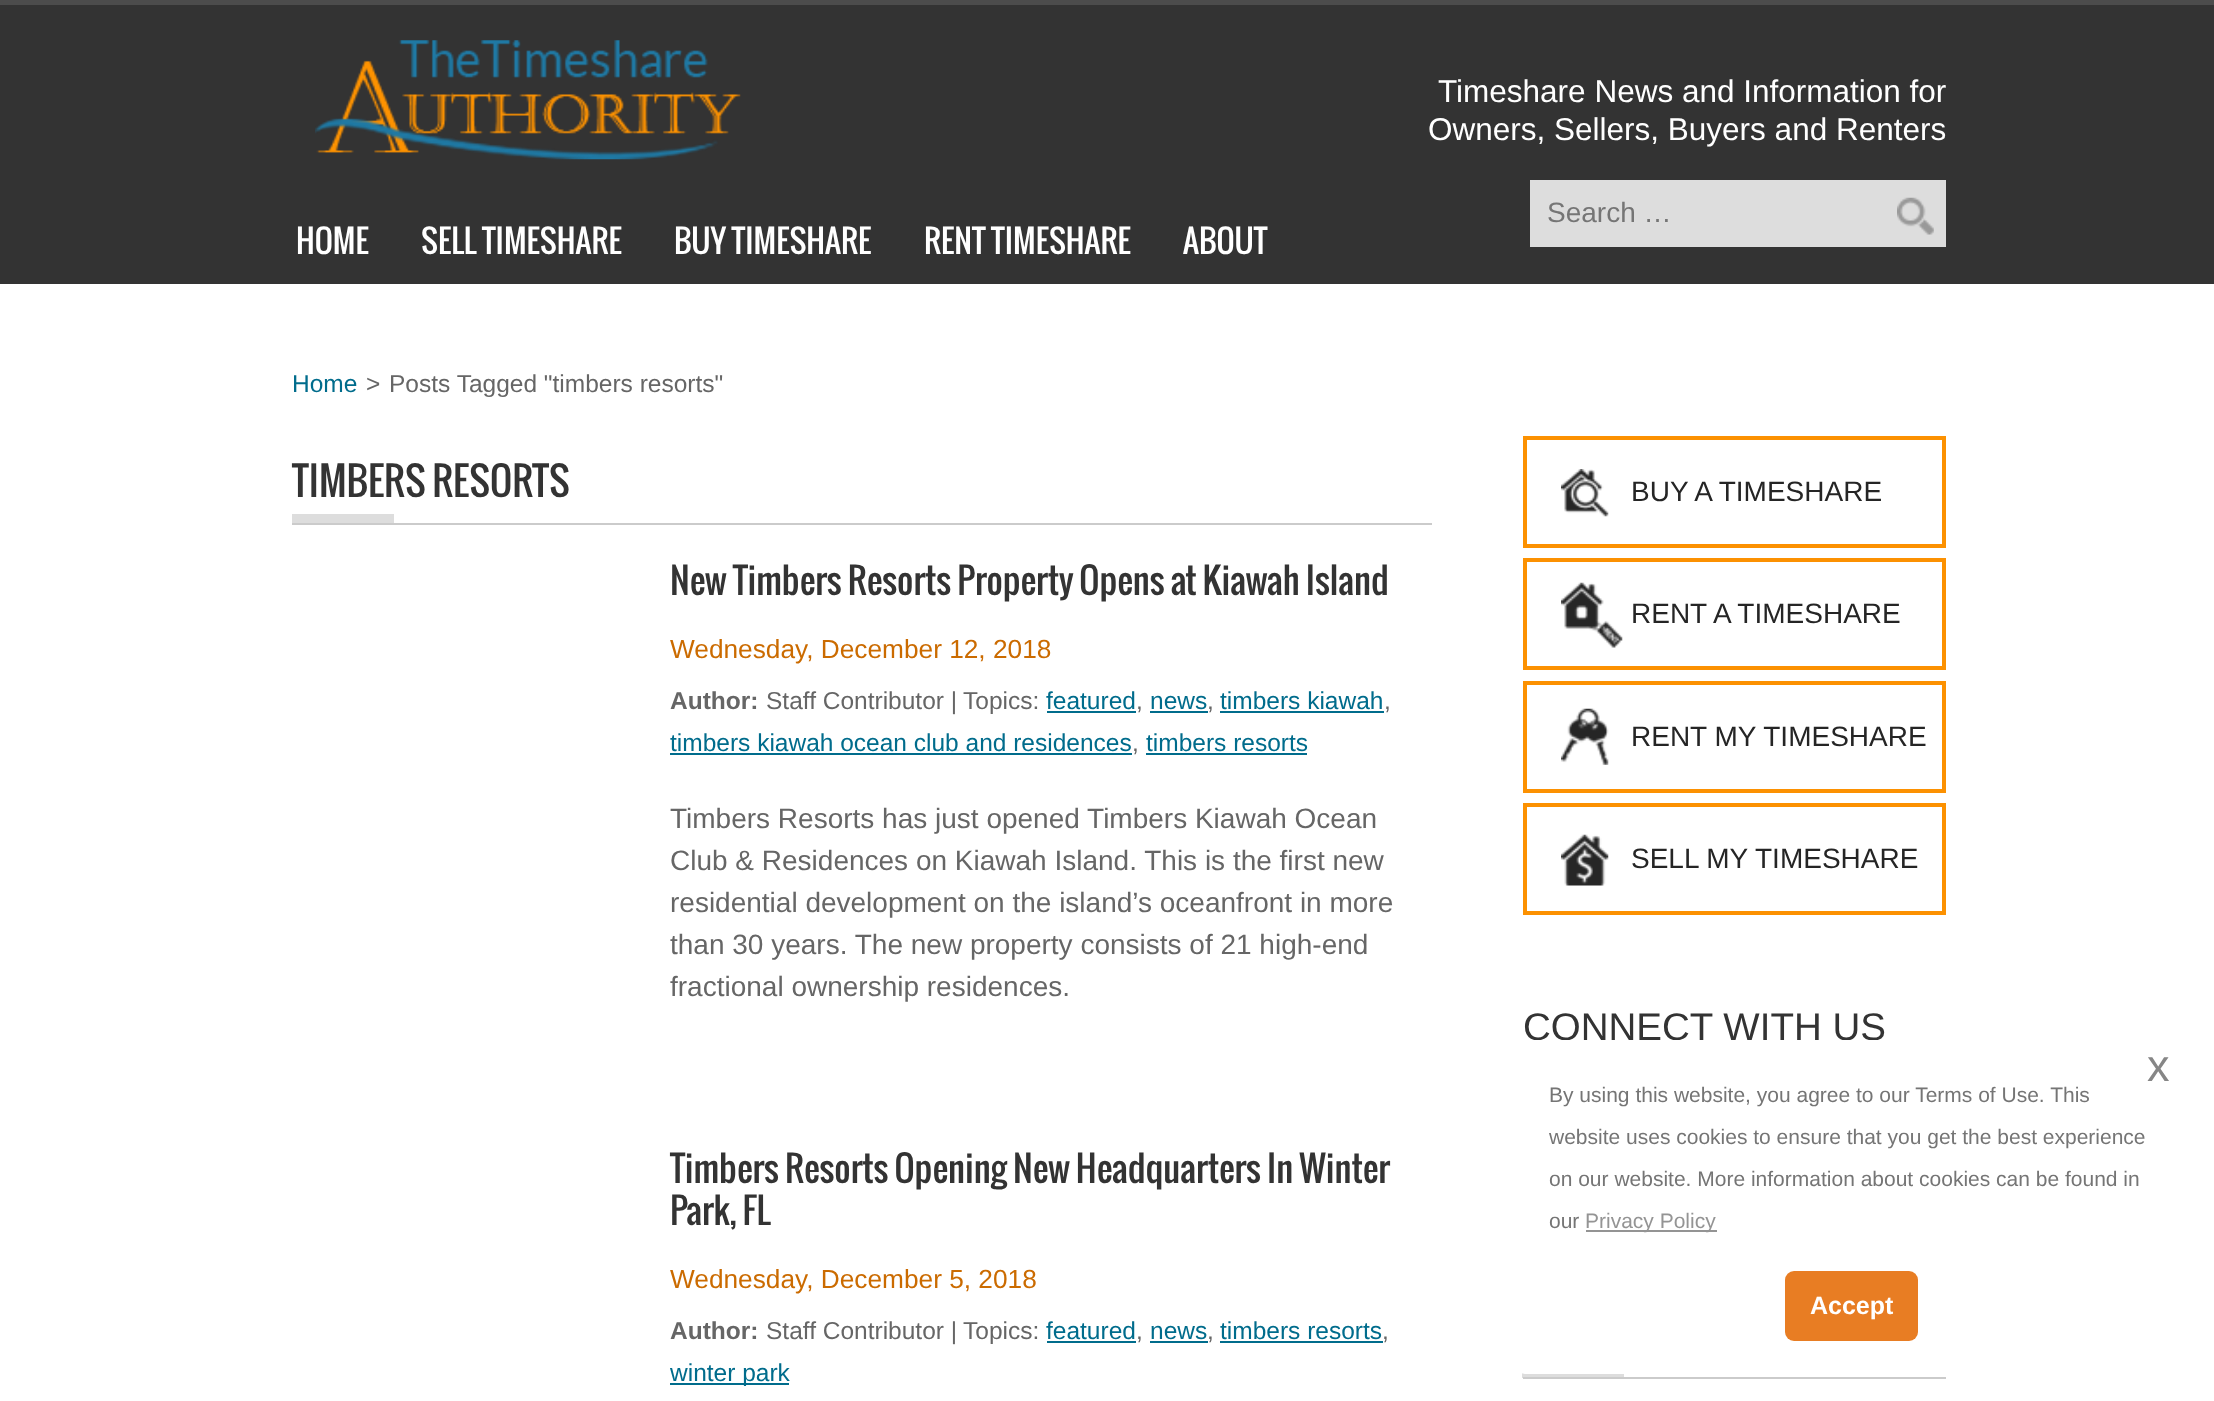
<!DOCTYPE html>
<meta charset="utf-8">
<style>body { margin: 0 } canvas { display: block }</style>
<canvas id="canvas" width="2214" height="1401"></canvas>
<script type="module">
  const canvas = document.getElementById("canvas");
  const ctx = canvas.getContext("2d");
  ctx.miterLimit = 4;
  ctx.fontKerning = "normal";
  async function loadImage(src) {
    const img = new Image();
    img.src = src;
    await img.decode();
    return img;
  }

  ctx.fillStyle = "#ffffff";
  ctx.fillRect(0, 0, 2214, 1401);
  ctx.fillStyle = "#333333";
  ctx.fillRect(0, 5, 2214, 279);
  ctx.fillStyle = "#4c4c4c";
  ctx.fillRect(0, 0, 2214, 5);
  ctx.drawImage(await loadImage("img1.png"), 315, 40, 426, 120);
  ctx.font = "31.5px Liberation Sans";
  ctx.fillStyle = "#ffffff";
  ctx.fillText("Timeshare News and Information for", 1438, 102);
  ctx.fillText("Owners, Sellers, Buyers and Renters", 1428, 140);
  ctx.fillStyle = "#dddddd";
  ctx.fillRect(1530, 180, 416, 67);
  ctx.drawImage(await loadImage("img2.png"), 1897, 197, 37, 38);
  ctx.font = "28px Liberation Sans";
  ctx.fillStyle = "#757575";
  ctx.fillText("Search …", 1547, 222);
  ctx.font = "31.5px Oswald";
  ctx.fillStyle = "#ffffff";
  ctx.fillText("HOME", 296, 254);
  ctx.fillText("SELL TIMESHARE", 421, 254);
  ctx.fillText("BUY TIMESHARE", 674, 254);
  ctx.fillText("RENT TIMESHARE", 924, 254);
  ctx.fillText("ABOUT", 1183, 254);
  ctx.font = "24.5px Liberation Sans";
  ctx.fillStyle = "#006c8c";
  ctx.fillText("Home", 292, 392);
  ctx.fillStyle = "#666666";
  ctx.fillText(">", 366, 392);
  ctx.fillText("Posts Tagged \"timbers resorts\"", 389, 392);
  ctx.fillStyle = "#dddddd";
  ctx.fillRect(292, 514, 102, 9);
  ctx.fillStyle = "#cbcbcb";
  ctx.fillRect(292, 523, 1140, 2);
  ctx.font = "38.5px Oswald";
  ctx.fillStyle = "#333333";
  ctx.fillText("TIMBERS RESORTS", 292, 497);
  ctx.font = "35px Oswald";
  ctx.fillText("New Timbers Resorts Property Opens at Kiawah Island", 670, 595);
  ctx.font = "26.25px Liberation Sans";
  ctx.fillStyle = "#cb6b00";
  ctx.fillText("Wednesday, December 12, 2018", 670, 658);
  ctx.font = "bold 24.5px Liberation Sans";
  ctx.fillStyle = "#666666";
  ctx.fillText("Author:", 670, 709);
  ctx.font = "24.5px Liberation Sans";
  ctx.fillText("Staff Contributor |", 766, 709);
  ctx.fillText("Topics:", 963, 709);
  ctx.fillStyle = "#006c8c";
  ctx.fillText("featured", 1046, 709);
  ctx.fillRect(1047, 711, 89, 2);
  ctx.fillStyle = "#666666";
  ctx.fillText(",", 1136, 709);
  ctx.fillStyle = "#006c8c";
  ctx.fillText("news", 1150, 709);
  ctx.fillRect(1150, 711, 58, 2);
  ctx.fillStyle = "#666666";
  ctx.fillText(",", 1207, 709);
  ctx.fillStyle = "#006c8c";
  ctx.fillText("timbers kiawah", 1220, 709);
  ctx.fillRect(1220, 711, 164, 2);
  ctx.fillStyle = "#666666";
  ctx.fillText(",", 1384, 709);
  ctx.fillStyle = "#006c8c";
  ctx.fillText("timbers kiawah ocean club and residences", 670, 751);
  ctx.fillRect(670, 753, 462, 2);
  ctx.fillStyle = "#666666";
  ctx.fillText(",", 1132, 751);
  ctx.fillStyle = "#006c8c";
  ctx.fillText("timbers resorts", 1146, 751);
  ctx.fillRect(1146, 753, 161, 2);
  ctx.font = "28px Liberation Sans";
  ctx.fillStyle = "#666666";
  ctx.fillText("Timbers Resorts has just opened Timbers Kiawah Ocean", 670, 828);
  ctx.fillText("Club & Residences on Kiawah Island. This is the first new", 670, 870);
  ctx.fillText("residential development on the island’s oceanfront in more", 670, 912);
  ctx.fillText("than 30 years. The new property consists of 21 high-end", 670, 954);
  ctx.fillText("fractional ownership residences.", 670, 996);
  ctx.font = "35px Oswald";
  ctx.fillStyle = "#333333";
  ctx.fillText("Timbers Resorts Opening New Headquarters In Winter", 670, 1183);
  ctx.fillText("Park, FL", 670, 1225);
  ctx.font = "26.25px Liberation Sans";
  ctx.fillStyle = "#cb6b00";
  ctx.fillText("Wednesday, December 5, 2018", 670, 1288);
  ctx.font = "bold 24.5px Liberation Sans";
  ctx.fillStyle = "#666666";
  ctx.fillText("Author:", 670, 1339);
  ctx.font = "24.5px Liberation Sans";
  ctx.fillText("Staff Contributor |", 766, 1339);
  ctx.fillText("Topics:", 963, 1339);
  ctx.fillStyle = "#006c8c";
  ctx.fillText("featured", 1046, 1339);
  ctx.fillRect(1047, 1341, 89, 2);
  ctx.fillStyle = "#666666";
  ctx.fillText(",", 1136, 1339);
  ctx.fillStyle = "#006c8c";
  ctx.fillText("news", 1150, 1339);
  ctx.fillRect(1150, 1341, 58, 2);
  ctx.fillStyle = "#666666";
  ctx.fillText(",", 1207, 1339);
  ctx.fillStyle = "#006c8c";
  ctx.fillText("timbers resorts", 1220, 1339);
  ctx.fillRect(1220, 1341, 163, 2);
  ctx.fillStyle = "#666666";
  ctx.fillText(",", 1382, 1339);
  ctx.fillStyle = "#006c8c";
  ctx.fillRect(670, 1383, 119, 2);
  ctx.fillText("winter park", 670, 1381);
  ctx.drawImage(await loadImage("img3.png"), 1561, 469, 48, 48);
  ctx.strokeStyle = "#fc9101";
  ctx.lineWidth = 4;
  ctx.strokeRect(1525, 438, 419, 108);
  ctx.font = "28px Liberation Sans";
  ctx.fillStyle = "#252525";
  ctx.fillText("BUY A TIMESHARE", 1631, 501);
  ctx.drawImage(await loadImage("img4.png"), 1561, 582, 62, 66);
  ctx.strokeRect(1525, 560, 419, 108);
  ctx.fillText("RENT A TIMESHARE", 1631, 623);
  ctx.drawImage(await loadImage("img5.png"), 1561, 708, 48, 57);
  ctx.strokeRect(1525, 683, 419, 108);
  ctx.fillText("RENT MY TIMESHARE", 1631, 746);
  ctx.drawImage(await loadImage("img6.png"), 1561, 834, 48, 52);
  ctx.strokeRect(1525, 805, 419, 108);
  ctx.fillText("SELL MY TIMESHARE", 1631, 868);
  ctx.font = "38.5px Liberation Sans";
  ctx.fillStyle = "#333333";
  ctx.fillText("CONNECT WITH US", 1523, 1040);
  ctx.fillStyle = "#dddddd";
  ctx.fillRect(1522, 1373, 102, 5);
  ctx.fillStyle = "#cbcbcb";
  ctx.fillRect(1523, 1377, 423, 2);
  ctx.fillStyle = "#ffffff";
  ctx.beginPath();
  ctx.roundRect(1516, 1040, 672, 334, 9);
  ctx.fill();
  ctx.font = "45px Liberation Sans";
  ctx.fillStyle = "#868686";
  ctx.fillText("x", 2147, 1081);
  ctx.font = "21px Liberation Sans";
  ctx.fillStyle = "#757575";
  ctx.fillText("By using this website, you agree to our Terms of Use. This", 1549, 1102);
  ctx.fillText("website uses cookies to ensure that you get the best experience", 1549, 1144);
  ctx.fillText("on our website. More information about cookies can be found in", 1549, 1186);
  ctx.fillText("our", 1549, 1228);
  ctx.fillStyle = "#949494";
  ctx.fillRect(1586, 1230, 131, 2);
  ctx.fillText("Privacy Policy", 1585, 1228);
  ctx.fillStyle = "#e87d23";
  ctx.beginPath();
  ctx.roundRect(1785, 1271, 133, 70, 9);
  ctx.fill();
  ctx.font = "bold 25px Liberation Sans";
  ctx.fillStyle = "#ffffff";
  ctx.fillText("Accept", 1810, 1314);
</script>
